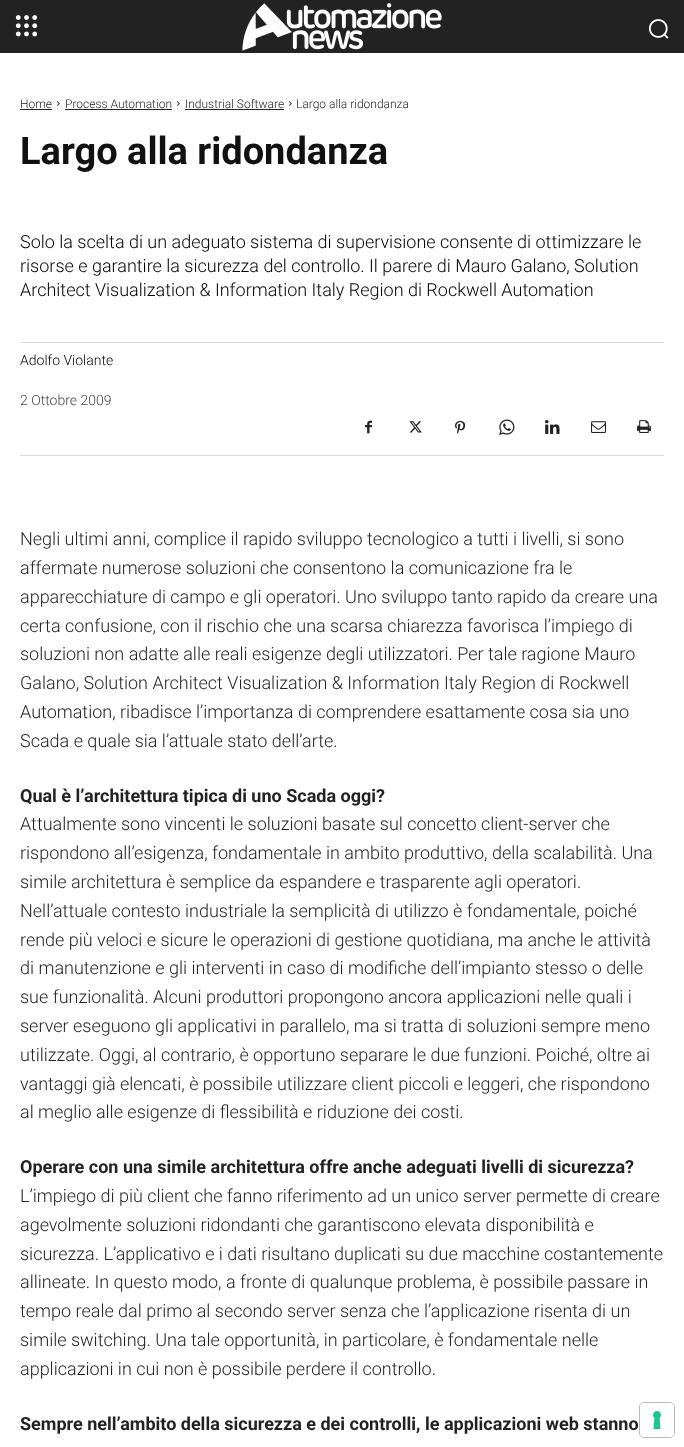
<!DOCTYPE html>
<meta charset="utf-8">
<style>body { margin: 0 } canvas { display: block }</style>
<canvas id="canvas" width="684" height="1447"></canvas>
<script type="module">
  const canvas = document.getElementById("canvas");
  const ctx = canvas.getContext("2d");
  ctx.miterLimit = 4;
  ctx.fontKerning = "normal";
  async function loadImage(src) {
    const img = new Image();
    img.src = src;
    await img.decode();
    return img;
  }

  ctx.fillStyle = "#ffffff";
  ctx.fillRect(0, 0, 684, 1447);
  ctx.fillStyle = "#222222";
  ctx.fillRect(0, 0, 684, 53);
  ctx.drawImage(await loadImage("img1.png"), 15, 15, 23, 22);
  ctx.drawImage(await loadImage("img2.png"), 242, 3, 200, 48);
  ctx.drawImage(await loadImage("img3.png"), 648, 19, 21, 20);
  ctx.font = "300 12px Roboto";
  ctx.fillText("Home", 20, 108);
  ctx.fillRect(20, 109, 32, 1);
  ctx.drawImage(await loadImage("img4.png"), 57, 101, 3, 5);
  ctx.fillText("Process Automation", 65, 108);
  ctx.fillRect(65, 109, 107, 1);
  ctx.drawImage(await loadImage("img4.png"), 177, 101, 3, 5);
  ctx.fillText("Industrial Software", 185, 108);
  ctx.fillRect(185, 109, 99, 1);
  ctx.drawImage(await loadImage("img4.png"), 289, 101, 3, 5);
  ctx.fillText("Largo alla ridondanza", 296, 108);
  ctx.font = "bold 38px Roboto";
  ctx.fillStyle = "#111111";
  ctx.fillText("Largo alla ridondanza", 20, 164);
  ctx.font = "300 18px Roboto";
  ctx.fillStyle = "#000000";
  ctx.fillText("Solo la scelta di un adeguato sistema di supervisione consente di ottimizzare le", 20, 248);
  ctx.fillText("risorse e garantire la sicurezza del controllo. Il parere di Mauro Galano, Solution", 20, 272);
  ctx.fillText("Architect Visualization & Information Italy Region di Rockwell Automation", 20, 296);
  ctx.fillStyle = "#d9d9d9";
  ctx.fillRect(20, 342, 644, 1);
  ctx.fillRect(20, 455, 644, 1);
  ctx.font = "300 14px Roboto";
  ctx.fillStyle = "#000000";
  ctx.fillText("Adolfo Violante", 20, 365);
  ctx.fillStyle = "#444444";
  ctx.fillText("2 Ottobre 2009", 20, 405);
  ctx.drawImage(await loadImage("img5.png"), 365, 420, 7, 14);
  ctx.drawImage(await loadImage("img6.png"), 409, 421, 13, 12);
  ctx.drawImage(await loadImage("img7.png"), 455, 420, 11, 14);
  ctx.drawImage(await loadImage("img8.png"), 499, 419, 16, 16);
  ctx.drawImage(await loadImage("img9.png"), 545, 420, 15, 14);
  ctx.drawImage(await loadImage("img10.png"), 591, 421, 15, 12);
  ctx.drawImage(await loadImage("img11.png"), 637, 420, 14, 13);
  ctx.font = "300 18px Roboto";
  ctx.fillStyle = "#222222";
  ctx.fillText("Negli ultimi anni, complice il rapido sviluppo tecnologico a tutti i livelli, si sono", 20, 545);
  ctx.fillText("affermate numerose soluzioni che consentono la comunicazione fra le", 20, 574);
  ctx.fillText("apparecchiature di campo e gli operatori. Uno sviluppo tanto rapido da creare una", 20, 603);
  ctx.fillText("certa confusione, con il rischio che una scarsa chiarezza favorisca l’impiego di", 20, 632);
  ctx.fillText("soluzioni non adatte alle reali esigenze degli utilizzatori. Per tale ragione Mauro", 20, 660);
  ctx.fillText("Galano, Solution Architect Visualization & Information Italy Region di Rockwell", 20, 689);
  ctx.fillText("Automation, ribadisce l’importanza di comprendere esattamente cosa sia uno", 20, 718);
  ctx.fillText("Scada e quale sia l’attuale stato dell’arte.", 20, 747);
  ctx.font = "bold 18px Roboto";
  ctx.fillText("Qual è l’architettura tipica di uno Scada oggi?", 20, 802);
  ctx.font = "300 18px Roboto";
  ctx.fillText("Attualmente sono vincenti le soluzioni basate sul concetto client-server che", 20, 830);
  ctx.fillText("rispondono all’esigenza, fondamentale in ambito produttivo, della scalabilità. Una", 20, 859);
  ctx.fillText("simile architettura è semplice da espandere e trasparente agli operatori.", 20, 888);
  ctx.fillText("Nell’attuale contesto industriale la semplicità di utilizzo è fondamentale, poiché", 20, 917);
  ctx.fillText("rende più veloci e sicure le operazioni di gestione quotidiana, ma anche le attività", 20, 946);
  ctx.fillText("di manutenzione e gli interventi in caso di modifiche dell’impianto stesso o delle", 20, 974);
  ctx.fillText("sue funzionalità. Alcuni produttori propongono ancora applicazioni nelle quali i", 20, 1003);
  ctx.fillText("server eseguono gli applicativi in parallelo, ma si tratta di soluzioni sempre meno", 20, 1032);
  ctx.fillText("utilizzate. Oggi, al contrario, è opportuno separare le due funzioni. Poiché, oltre ai", 20, 1061);
  ctx.fillText("vantaggi già elencati, è possibile utilizzare client piccoli e leggeri, che rispondono", 20, 1090);
  ctx.fillText("al meglio alle esigenze di flessibilità e riduzione dei costi.", 20, 1118);
  ctx.font = "bold 18px Roboto";
  ctx.fillText("Operare con una simile architettura offre anche adeguati livelli di sicurezza?", 20, 1173);
  ctx.font = "300 18px Roboto";
  ctx.fillText("L’impiego di più client che fanno riferimento ad un unico server permette di creare", 20, 1202);
  ctx.fillText("agevolmente soluzioni ridondanti che garantiscono elevata disponibilità e", 20, 1231);
  ctx.fillText("sicurezza. L’applicativo e i dati risultano duplicati su due macchine costantemente", 20, 1260);
  ctx.fillText("allineate. In questo modo, a fronte di qualunque problema, è possibile passare in", 20, 1288);
  ctx.fillText("tempo reale dal primo al secondo server senza che l’applicazione risenta di un", 20, 1317);
  ctx.fillText("simile switching. Una tale opportunità, in particolare, è fondamentale nelle", 20, 1346);
  ctx.fillText("applicazioni in cui non è possibile perdere il controllo.", 20, 1375);
  ctx.font = "bold 18px Roboto";
  ctx.fillText("Sempre nell’ambito della sicurezza e dei controlli, le applicazioni web stanno", 20, 1430);
  ctx.beginPath();
  ctx.roundRect(639.5, 1402.5, 35, 35, 4.5);
  ctx.strokeStyle = "#d9d9d9";
  ctx.stroke();
  ctx.beginPath();
  ctx.roundRect(639.5, 1402.5, 35, 35, 4.5);
  ctx.strokeStyle = "rgba(0, 0, 0, 0.15)";
  ctx.stroke();
  ctx.fillStyle = "#ffffff";
  ctx.beginPath();
  ctx.roundRect(640, 1403, 34, 34, 4);
  ctx.fill();
  ctx.drawImage(await loadImage("img12.png"), 653, 1411, 8, 18);
</script>
